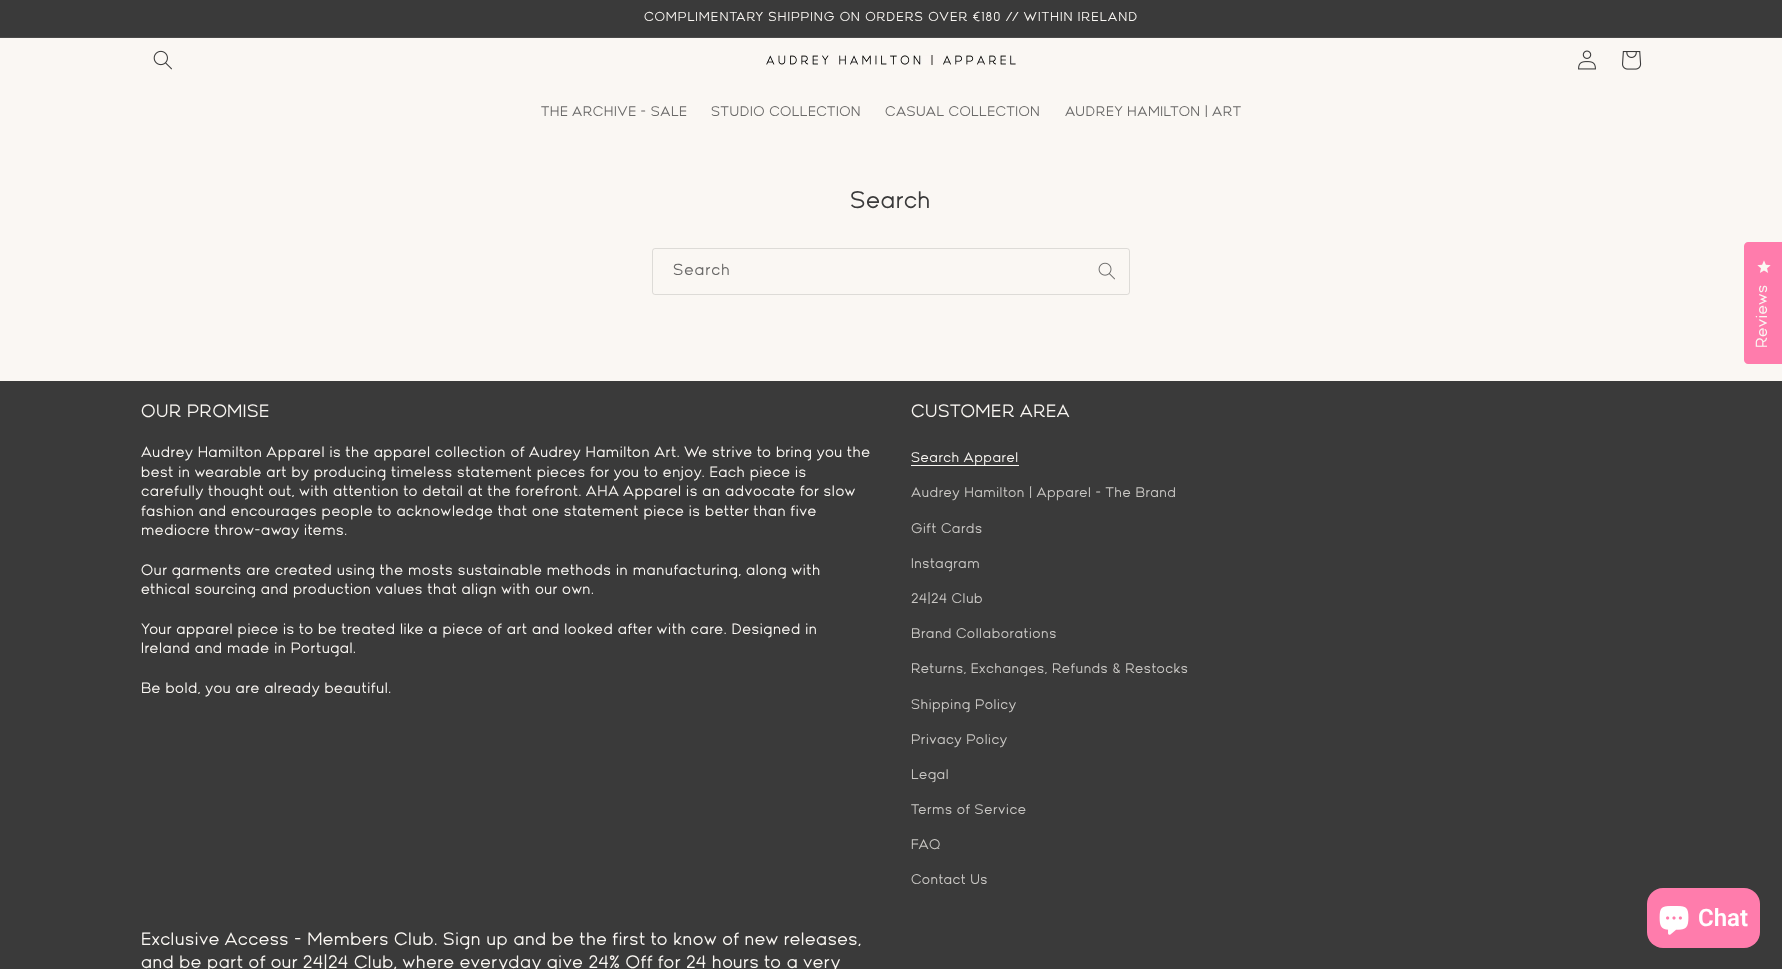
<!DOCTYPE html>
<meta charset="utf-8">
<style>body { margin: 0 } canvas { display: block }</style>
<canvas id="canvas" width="1782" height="969"></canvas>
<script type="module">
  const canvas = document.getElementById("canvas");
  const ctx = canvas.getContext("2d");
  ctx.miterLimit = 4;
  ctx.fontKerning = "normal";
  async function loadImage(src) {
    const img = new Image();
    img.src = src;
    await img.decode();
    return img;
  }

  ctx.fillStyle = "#faf7f3";
  ctx.fillRect(0, 0, 1782, 969);
  ctx.fillStyle = "#3a3a3a";
  ctx.fillRect(0, 0, 1782, 37);
  ctx.fillStyle = "#494949";
  ctx.fillRect(0, 37, 1782, 1);
  ctx.letterSpacing = "1px";
  ctx.font = "13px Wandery";
  ctx.fillStyle = "#faf7f3";
  ctx.fillText("COMPLIMENTARY SHIPPING ON ORDERS OVER €180 // WITHIN IRELAND", 644, 21);
  ctx.drawImage(await loadImage("img1.png"), 153, 50, 19, 20);
  ctx.drawImage(await loadImage("img2.png"), 766, 55, 250, 10);
  ctx.drawImage(await loadImage("img3.png"), 1578, 50, 18, 20);
  ctx.drawImage(await loadImage("img4.png"), 1622, 51, 20, 19);
  ctx.letterSpacing = "0.6px";
  ctx.font = "14px Wandery";
  ctx.fillStyle = "#6a6968";
  ctx.fillText("THE ARCHIVE - SALE", 541, 116);
  ctx.fillText("STUDIO COLLECTION", 711, 116);
  ctx.fillText("CASUAL COLLECTION", 885, 116);
  ctx.fillText("AUDREY HAMILTON | ART", 1065, 116);
  ctx.font = "24px Wandery";
  ctx.fillStyle = "#3a3a3a";
  ctx.fillText("Search", 850, 208);
  ctx.drawImage(await loadImage("img5.png"), 1098, 262, 17, 18);
  ctx.beginPath();
  ctx.roundRect(652.5, 248.5, 477, 46, 2.5);
  ctx.strokeStyle = "rgba(58, 58, 58, 0.15)";
  ctx.stroke();
  ctx.letterSpacing = "1px";
  ctx.font = "16px Wandery";
  ctx.fillStyle = "#6a6968";
  ctx.fillText("Search", 673, 275);
  ctx.fillStyle = "#ff7cac";
  ctx.beginPath();
  ctx.moveTo(1748, 242);
  ctx.lineTo(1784, 242);
  ctx.lineTo(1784, 364);
  ctx.lineTo(1748, 364);
  ctx.bezierCurveTo(1746, 364, 1744, 362, 1744, 360);
  ctx.lineTo(1744, 246);
  ctx.bezierCurveTo(1744, 244, 1746, 242, 1748, 242);
  ctx.closePath();
  ctx.fill();
  ctx.drawImage(await loadImage("img6.png"), 1757, 260, 14, 13);
  ctx.letterSpacing = "0.6px";
  ctx.fillStyle = "#faf7f3";
  ctx.save();
  ctx.translate(1767, 348);
  ctx.rotate(-89.9 * Math.PI / 180);
  ctx.fillText("Reviews", 0, 0);
  ctx.restore();
  ctx.fillStyle = "#3a3a3a";
  ctx.fillRect(0, 381, 1782, 588);
  ctx.font = "18px Wandery";
  ctx.fillStyle = "#faf7f3";
  ctx.fillText("OUR PROMISE", 141, 417);
  ctx.font = "15px Wandery";
  ctx.fillText("Audrey Hamilton Apparel is the apparel collection of Audrey Hamilton Art. We strive to bring you the", 141, 457);
  ctx.fillText("best in wearable art by producing timeless statement pieces for you to enjoy. Each piece is", 141, 477);
  ctx.fillText("carefully thought out, with attention to detail at the forefront. AHA Apparel is an advocate for slow", 141, 496);
  ctx.fillText("fashion and encourages people to acknowledge that one statement piece is better than five", 141, 516);
  ctx.fillText("mediocre throw-away items.", 141, 535);
  ctx.fillText("Our garments are created using the mosts sustainable methods in manufacturing, along with", 141, 575);
  ctx.fillText("ethical sourcing and production values that align with our own.", 141, 594);
  ctx.fillText("Your apparel piece is to be treated like a piece of art and looked after with care. Designed in", 141, 634);
  ctx.fillText("Ireland and made in Portugal.", 141, 653);
  ctx.fillText("Be bold, you are already beautiful.", 141, 693);
  ctx.font = "18px Wandery";
  ctx.fillText("CUSTOMER AREA", 911, 417);
  ctx.fillRect(911, 465, 108, 1);
  ctx.font = "14px Wandery";
  ctx.fillText("Search Apparel", 911, 462);
  ctx.fillStyle = "#cac8c5";
  ctx.fillText("Audrey Hamilton | Apparel - The Brand", 911, 497);
  ctx.fillText("Gift Cards", 911, 533);
  ctx.fillText("Instagram", 911, 568);
  ctx.fillText("24|24 Club", 911, 603);
  ctx.fillText("Brand Collaborations", 911, 638);
  ctx.fillText("Returns, Exchanges, Refunds & Restocks", 911, 673);
  ctx.fillText("Shipping Policy", 911, 709);
  ctx.fillText("Privacy Policy", 911, 744);
  ctx.fillText("Legal", 911, 779);
  ctx.fillText("Terms of Service", 911, 814);
  ctx.fillText("FAQ", 911, 849);
  ctx.fillText("Contact Us", 911, 884);
  ctx.font = "18px Wandery";
  ctx.fillStyle = "#faf7f3";
  ctx.fillText("Exclusive Access - Members Club. Sign up and be the first to know of new releases,", 141, 945);
  ctx.fillText("and be part of our 24|24 Club, where everyday give 24% Off for 24 hours to a very", 141, 968);
  ctx.fillStyle = "#ff7cac";
  ctx.beginPath();
  ctx.roundRect(1647, 888, 113, 60, 16);
  ctx.fill();
  ctx.drawImage(await loadImage("img7.png"), 1659, 906, 30, 29);
  ctx.letterSpacing = "0px";
  ctx.font = "600 24px Roboto";
  ctx.fillStyle = "#ffffff";
  ctx.fillText("Chat", 1698, 926);
</script>
